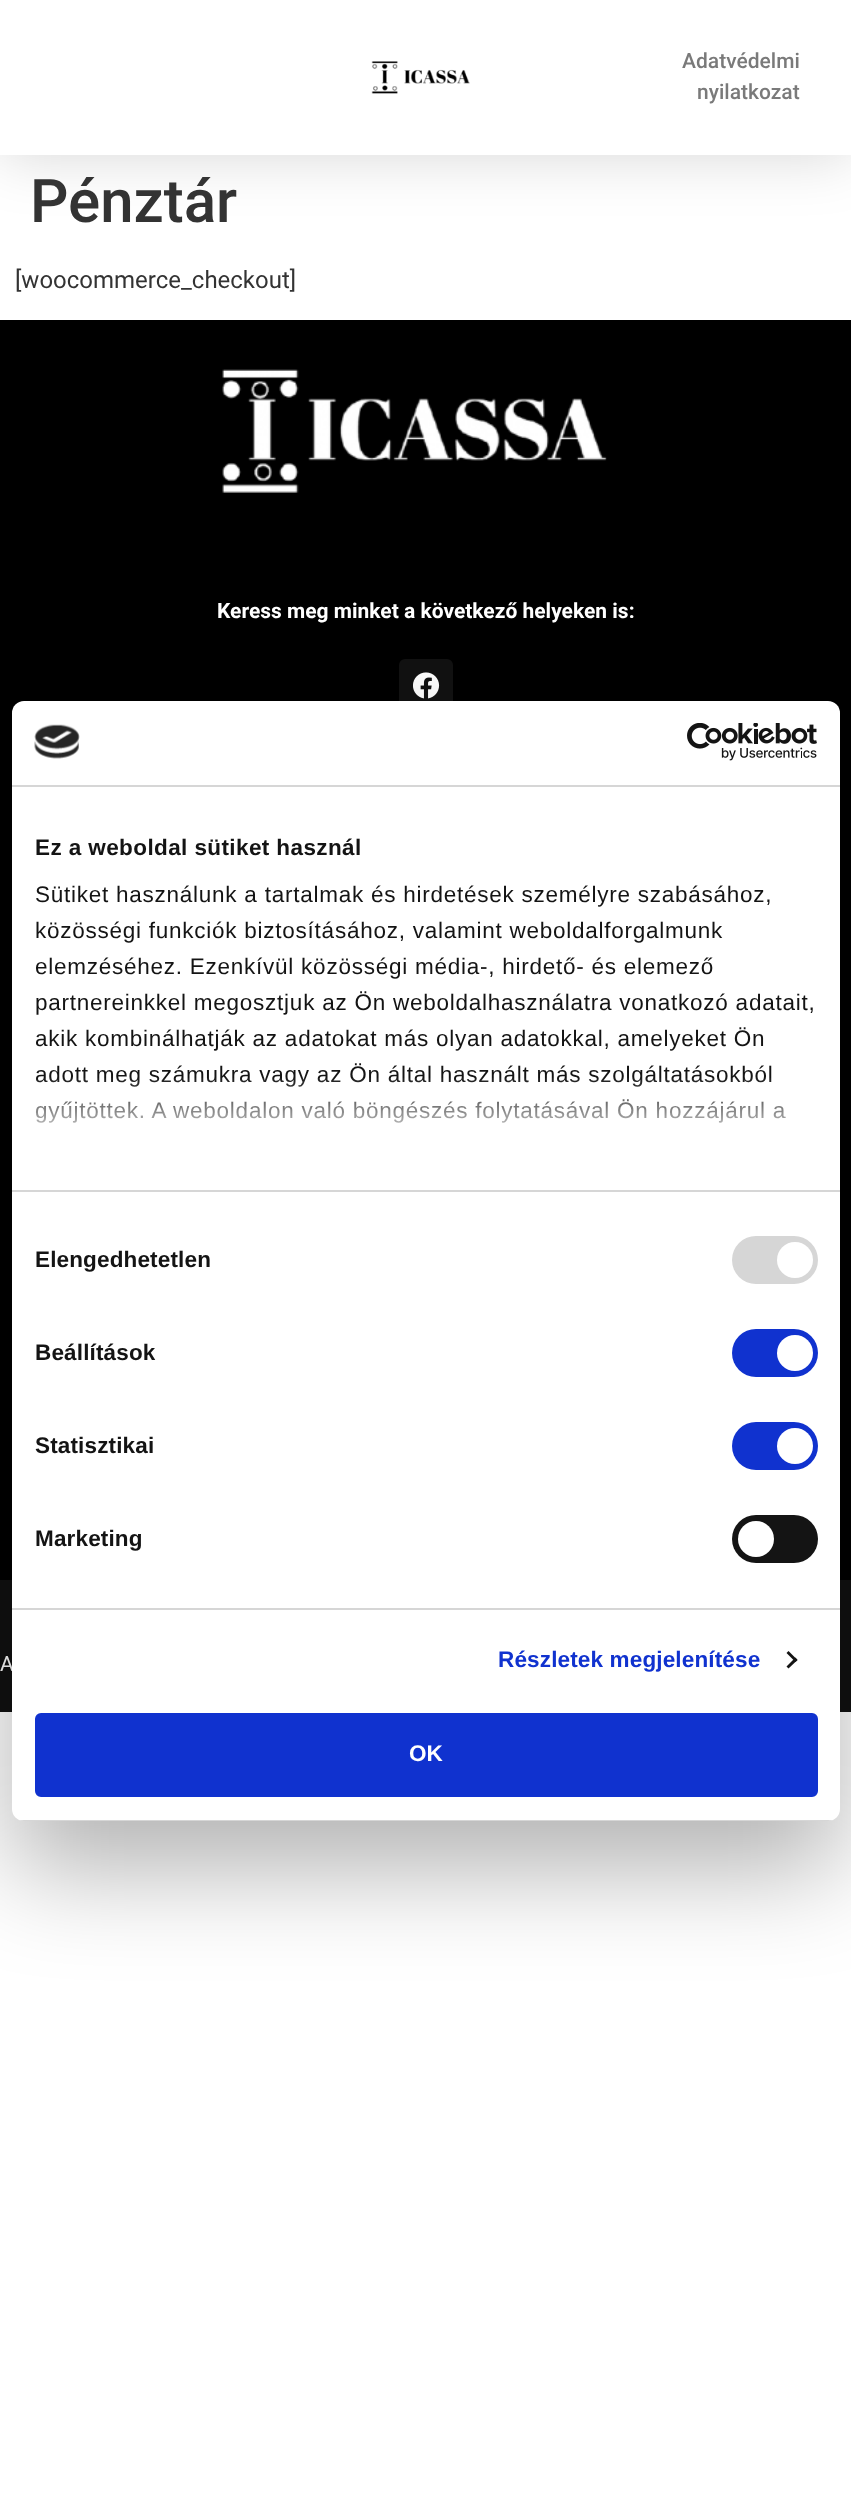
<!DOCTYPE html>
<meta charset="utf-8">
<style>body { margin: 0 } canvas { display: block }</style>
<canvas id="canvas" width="851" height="2519"></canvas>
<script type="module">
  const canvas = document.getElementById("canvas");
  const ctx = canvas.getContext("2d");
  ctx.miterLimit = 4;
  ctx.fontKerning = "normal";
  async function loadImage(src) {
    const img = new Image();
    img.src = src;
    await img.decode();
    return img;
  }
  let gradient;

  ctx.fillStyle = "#ffffff";
  ctx.fillRect(0, 0, 851, 2519);
  ctx.fillStyle = "rgba(0, 0, 0, 0.16)";
  ctx.filter = "blur(30px)";
  ctx.beginPath();
  ctx.rect(0, 0, 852, 155);
  ctx.fill();
  ctx.filter = "none";
  ctx.fillStyle = "#ffffff";
  ctx.fillRect(0, 0, 851, 155);
  ctx.drawImage(await loadImage("img1.png"), 371, 61, 99, 33);
  ctx.font = "500 21px Roboto";
  ctx.fillStyle = "#7a7a7a";
  ctx.fillText("Adatvédelmi", 682, 68);
  ctx.fillText("nyilatkozat", 697, 99);
  ctx.font = "500 60px Roboto";
  ctx.fillStyle = "#333333";
  ctx.fillText("Pénztár", 30, 222);
  ctx.font = "24px Roboto";
  ctx.fillText("[woocommerce_checkout]", 15, 288);
  ctx.fillStyle = "#000000";
  ctx.fillRect(0, 320, 851, 1260);
  ctx.drawImage(await loadImage("img2.png"), 222, 369, 385, 124);
  ctx.font = "bold 21px Roboto";
  ctx.fillStyle = "#ffffff";
  ctx.fillText("Keress meg minket a következő helyeken is:", 217, 618);
  ctx.fillStyle = "#121212";
  ctx.beginPath();
  ctx.roundRect(399, 659, 54, 54, 6);
  ctx.fill();
  ctx.drawImage(await loadImage("img3.png"), 413, 672, 27, 27);
  ctx.fillStyle = "#111111";
  ctx.fillRect(0, 1580, 851, 132);
  ctx.font = "21px Roboto";
  ctx.fillStyle = "#ffffff";
  ctx.fillText("A", 0, 1671);
  ctx.fillStyle = "rgba(0, 0, 0, 0.3)";
  ctx.filter = "blur(51px)";
  ctx.beginPath();
  ctx.roundRect(12, 749, 828, 1120, 12);
  ctx.fill();
  ctx.filter = "none";
  ctx.fillStyle = "#ffffff";
  ctx.beginPath();
  ctx.roundRect(12, 701, 828, 1120, 12);
  ctx.fill();
  ctx.fillStyle = "#d6d6d6";
  ctx.fillRect(12, 785, 828, 2);
  ctx.drawImage(await loadImage("img4.png"), 34, 724, 46, 35);
  ctx.drawImage(await loadImage("img5.png"), 687, 723, 130, 38);
  ctx.fillRect(12, 1190, 828, 2);
  ctx.letterSpacing = "0.4px";
  ctx.font = "bold 22.5px Liberation Sans";
  ctx.fillStyle = "#141414";
  ctx.fillText("Ez a weboldal sütiket használ", 35, 855);
  ctx.letterSpacing = "0.75px";
  ctx.font = "22.5px Liberation Sans";
  ctx.fillText("Sütiket használunk a tartalmak és hirdetések személyre szabásához,", 35, 902);
  ctx.fillText("közösségi funkciók biztosításához, valamint weboldalforgalmunk", 35, 938);
  ctx.fillText("elemzéséhez. Ezenkívül közösségi média-, hirdető- és elemező", 35, 974);
  ctx.fillText("partnereinkkel megosztjuk az Ön weboldalhasználatra vonatkozó adatait,", 35, 1010);
  ctx.fillText("akik kombinálhatják az adatokat más olyan adatokkal, amelyeket Ön", 35, 1046);
  ctx.fillText("adott meg számukra vagy az Ön által használt más szolgáltatásokból", 35, 1082);
  ctx.fillText("gyűjtöttek. A weboldalon való böngészés folytatásával Ön hozzájárul a", 35, 1118);
  gradient = ctx.createLinearGradient(416, 1189, 416, 1076);
  gradient.addColorStop(0, "#ffffff");
  gradient.addColorStop(0.5, "rgba(255, 255, 255, 0.8)");
  gradient.addColorStop(1, "rgba(255, 255, 255, 0)");
  ctx.fillStyle = gradient;
  ctx.fillRect(35, 1078, 750, 45);
  ctx.fillStyle = "#d6d6d6";
  ctx.fillRect(12, 1608, 828, 2);
  ctx.letterSpacing = "0.15px";
  ctx.font = "bold 22.5px Liberation Sans";
  ctx.fillStyle = "#141414";
  ctx.fillText("Elengedhetetlen", 35, 1267);
  ctx.fillStyle = "#d6d6d6";
  ctx.beginPath();
  ctx.roundRect(732, 1236, 86, 48, 24);
  ctx.fill();
  ctx.fillStyle = "#ffffff";
  ctx.beginPath();
  ctx.arc(795, 1260, 18, 0, Math.PI * 2);
  ctx.fill();
  ctx.fillStyle = "#141414";
  ctx.fillText("Beállítások", 35, 1360);
  ctx.fillStyle = "#1032cf";
  ctx.beginPath();
  ctx.roundRect(732, 1329, 86, 48, 24);
  ctx.fill();
  ctx.fillStyle = "#ffffff";
  ctx.beginPath();
  ctx.arc(795, 1353, 18, 0, Math.PI * 2);
  ctx.fill();
  ctx.fillStyle = "#141414";
  ctx.fillText("Statisztikai", 35, 1453);
  ctx.fillStyle = "#1032cf";
  ctx.beginPath();
  ctx.roundRect(732, 1422, 86, 48, 24);
  ctx.fill();
  ctx.fillStyle = "#ffffff";
  ctx.beginPath();
  ctx.arc(795, 1446, 18, 0, Math.PI * 2);
  ctx.fill();
  ctx.fillStyle = "#141414";
  ctx.fillText("Marketing", 35, 1546);
  ctx.beginPath();
  ctx.roundRect(732, 1515, 86, 48, 24);
  ctx.fill();
  ctx.fillStyle = "#ffffff";
  ctx.beginPath();
  ctx.arc(756, 1539, 18, 0, Math.PI * 2);
  ctx.fill();
  ctx.fillStyle = "#1032cf";
  ctx.fillText("Részletek megjelenítése", 498, 1667);
  ctx.fillStyle = "#141414";
  ctx.beginPath();
  ctx.moveTo(788.5, 1651);
  ctx.lineTo(797.5, 1660);
  ctx.lineTo(795.5, 1662);
  ctx.lineTo(786.5, 1653);
  ctx.closePath();
  ctx.fill();
  ctx.beginPath();
  ctx.moveTo(795.5, 1657.5);
  ctx.lineTo(797.5, 1660);
  ctx.lineTo(788.5, 1668.5);
  ctx.lineTo(786.5, 1666.5);
  ctx.closePath();
  ctx.fill();
  ctx.save();
  ctx.beginPath();
  ctx.roundRect(12, 701, 828, 1120, 12);
  ctx.clip();
  ctx.fillStyle = "#d6d6d6";
  ctx.fillRect(12, 1820, 828, 1);
  ctx.restore();
  ctx.fillStyle = "#1032cf";
  ctx.beginPath();
  ctx.roundRect(36.5, 1714.5, 780, 81, 4.5);
  ctx.fill();
  ctx.strokeStyle = "#1032cf";
  ctx.lineWidth = 3;
  ctx.stroke();
  ctx.letterSpacing = "0px";
  ctx.fillStyle = "#ffffff";
  ctx.fillText("OK", 409, 1761);
</script>
